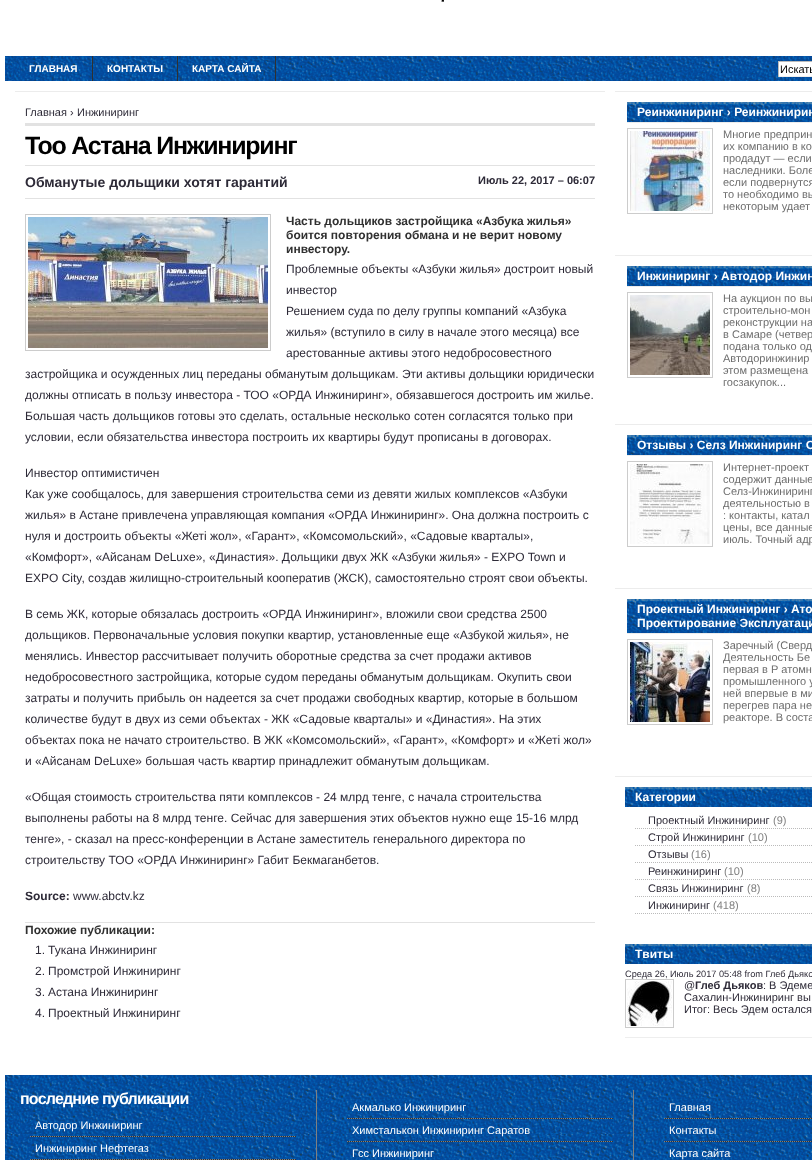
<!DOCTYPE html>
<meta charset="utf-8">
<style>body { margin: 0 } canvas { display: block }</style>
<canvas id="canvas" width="812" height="1160"></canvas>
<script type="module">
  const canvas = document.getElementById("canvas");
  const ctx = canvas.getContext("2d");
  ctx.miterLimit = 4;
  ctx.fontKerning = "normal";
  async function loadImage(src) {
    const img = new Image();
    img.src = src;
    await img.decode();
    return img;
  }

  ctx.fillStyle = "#ffffff";
  ctx.fillRect(0, 0, 812, 1160);
  ctx.drawImage(await loadImage("img1.png"), 441, 0, 3, 2);
  ctx.drawImage(await loadImage("img2.png"), 5, 56, 807, 25);
  ctx.fillStyle = "#303030";
  ctx.fillRect(92, 56, 1, 25);
  ctx.font = "bold 10px Liberation Sans";
  ctx.fillStyle = "#ffffff";
  ctx.fillText("ГЛАВНАЯ", 29, 72);
  ctx.fillStyle = "#303030";
  ctx.fillRect(177, 56, 1, 25);
  ctx.fillStyle = "#ffffff";
  ctx.fillText("КОНТАКТЫ", 107, 72);
  ctx.fillStyle = "#303030";
  ctx.fillRect(275, 56, 1, 25);
  ctx.fillStyle = "#ffffff";
  ctx.fillText("КАРТА САЙТА", 192, 72);
  ctx.fillRect(779, 62, 33, 14);
  ctx.fillStyle = "#bbbbbb";
  ctx.fillRect(778, 61, 34, 1);
  ctx.fillStyle = "#eeeeee";
  ctx.fillRect(778, 76, 34, 1);
  ctx.fillStyle = "#bbbbbb";
  ctx.fillRect(778, 61, 1, 16);
  ctx.font = "11px Liberation Sans";
  ctx.fillStyle = "#000000";
  ctx.fillText("Искать", 780, 73);
  ctx.fillStyle = "#ececec";
  ctx.fillRect(15, 91, 590, 1);
  ctx.fillStyle = "#2d2a37";
  ctx.fillText("Главная", 25, 116);
  ctx.fillText("›", 70, 116);
  ctx.fillText("Инжиниринг", 77, 116);
  ctx.fillStyle = "#e2e2e2";
  ctx.fillRect(25, 123, 570, 3);
  ctx.fillRect(25, 165, 570, 1);
  ctx.letterSpacing = "-1.25px";
  ctx.font = "bold 25px Liberation Sans";
  ctx.fillStyle = "#000000";
  ctx.fillText("Тоо Астана Инжиниринг", 25, 154);
  ctx.fillStyle = "#e2e2e2";
  ctx.fillRect(25, 198, 570, 1);
  ctx.letterSpacing = "0px";
  ctx.font = "bold 14px Liberation Sans";
  ctx.fillStyle = "#2d2a37";
  ctx.fillText("Обманутые дольщики хотят гарантий", 25, 187);
  ctx.font = "bold 11px Liberation Sans";
  ctx.fillText("Июль 22, 2017 – 06:07", 478, 184);
  ctx.fillStyle = "#e2e2e2";
  ctx.fillRect(25, 922, 570, 1);
  ctx.strokeStyle = "#cccccc";
  ctx.strokeRect(25.5, 214.5, 245, 136);
  ctx.drawImage(await loadImage("img3.png"), 28, 217, 240, 131);
  ctx.font = "bold 12px Liberation Sans";
  ctx.fillStyle = "#303030";
  ctx.fillText("Часть дольщиков застройщика «Азбука жилья»", 286, 225);
  ctx.fillText("боится повторения обмана и не верит новому", 286, 239);
  ctx.fillText("инвестору.", 286, 253);
  ctx.font = "12px Liberation Sans";
  ctx.fillStyle = "#2d2a37";
  ctx.fillText("Проблемные объекты «Азбуки жилья» достроит новый", 286, 273);
  ctx.fillText("инвестор", 286, 294);
  ctx.fillText("Решением суда по делу группы компаний «Азбука", 286, 315);
  ctx.fillText("жилья» (вступило в силу в начале этого месяца) все", 286, 336);
  ctx.fillText("арестованные активы этого недобросовестного", 286, 357);
  ctx.fillText("застройщика и осужденных лиц переданы обманутым дольщикам. Эти активы дольщики юридически", 25, 378);
  ctx.fillText("должны отписать в пользу инвестора - ТОО «ОРДА Инжиниринг», обязавшегося достроить им жилье.", 25, 399);
  ctx.fillText("Большая часть дольщиков готовы это сделать, остальные несколько сотен согласятся только при", 25, 420);
  ctx.fillText("условии, если обязательства инвестора построить их квартиры будут прописаны в договорах.", 25, 441);
  ctx.fillText("Инвестор оптимистичен", 25, 477);
  ctx.fillText("Как уже сообщалось, для завершения строительства семи из девяти жилых комплексов «Азбуки", 25, 498);
  ctx.fillText("жилья» в Астане привлечена управляющая компания «ОРДА Инжиниринг». Она должна построить с", 25, 519);
  ctx.fillText("нуля и достроить объекты «Жетi жол», «Гарант», «Комсомольский», «Садовые кварталы»,", 25, 540);
  ctx.fillText("«Комфорт», «Айсанам DeLuxe», «Династия». Дольщики двух ЖК «Азбуки жилья» - EXPO Town и", 25, 561);
  ctx.fillText("EXPO City, создав жилищно-строительный кооператив (ЖСК), самостоятельно строят свои объекты.", 25, 582);
  ctx.fillText("В семь ЖК, которые обязалась достроить «ОРДА Инжиниринг», вложили свои средства 2500", 25, 618);
  ctx.fillText("дольщиков. Первоначальные условия покупки квартир, установленные еще «Азбукой жилья», не", 25, 639);
  ctx.fillText("менялись. Инвестор рассчитывает получить оборотные средства за счет продажи активов", 25, 660);
  ctx.fillText("недобросовестного застройщика, которые судом переданы обманутым дольщикам. Окупить свои", 25, 681);
  ctx.fillText("затраты и получить прибыль он надеется за счет продажи свободных квартир, которые в большом", 25, 702);
  ctx.fillText("количестве будут в двух из семи объектах - ЖК «Садовые кварталы» и «Династия». На этих", 25, 723);
  ctx.fillText("объектах пока не начато строительство. В ЖК «Комсомольский», «Гарант», «Комфорт» и «Жетi жол»", 25, 744);
  ctx.fillText("и «Айсанам DeLuxe» большая часть квартир принадлежит обманутым дольщикам.", 25, 765);
  ctx.fillText("«Общая стоимость строительства пяти комплексов - 24 млрд тенге, с начала строительства", 25, 801);
  ctx.fillText("выполнены работы на 8 млрд тенге. Сейчас для завершения этих объектов нужно еще 15-16 млрд", 25, 822);
  ctx.fillText("тенге», - сказал на пресс-конференции в Астане заместитель генерального директора по", 25, 843);
  ctx.fillText("строительству ТОО «ОРДА Инжиниринг» Габит Бекмаганбетов.", 25, 864);
  ctx.font = "bold 12px Liberation Sans";
  ctx.fillText("Source:", 25, 900);
  ctx.font = "12px Liberation Sans";
  ctx.fillText("www.abctv.kz", 73, 900);
  ctx.font = "bold 12px Liberation Sans";
  ctx.fillStyle = "#303030";
  ctx.fillText("Похожие публикации:", 25, 934);
  ctx.font = "12px Liberation Sans";
  ctx.fillStyle = "#2d2a37";
  ctx.fillText("1.", 35, 954);
  ctx.fillText("Тукана Инжиниринг", 48, 954);
  ctx.fillText("2.", 35, 975);
  ctx.fillText("Промстрой Инжиниринг", 48, 975);
  ctx.fillText("3.", 35, 996);
  ctx.fillText("Астана Инжиниринг", 48, 996);
  ctx.fillText("4.", 35, 1017);
  ctx.fillText("Проектный Инжиниринг", 48, 1017);
  ctx.fillStyle = "#ececec";
  ctx.fillRect(615, 91, 197, 1);
  ctx.drawImage(await loadImage("img4.png"), 627, 102, 185, 20);
  ctx.fillRect(627, 122, 185, 1);
  ctx.font = "bold 12px Liberation Sans";
  ctx.fillStyle = "#ffffff";
  ctx.fillText("Реинжиниринг › Реинжинирин", 637, 116);
  ctx.strokeRect(627.5, 128.5, 85, 85);
  ctx.drawImage(await loadImage("img5.png"), 630, 131, 80, 80);
  ctx.font = "11px Liberation Sans";
  ctx.fillStyle = "#6d6d6d";
  ctx.fillText("Многие предприн", 723, 138);
  ctx.fillText("их компанию в ко", 723, 150);
  ctx.fillText("продадут — если", 723, 162);
  ctx.fillText("наследники. Боле", 723, 174);
  ctx.fillText("если подвернутся", 723, 186);
  ctx.fillText("то необходимо вы", 723, 198);
  ctx.fillText("некоторым удает", 723, 210);
  ctx.fillStyle = "#ececec";
  ctx.fillRect(615, 255, 197, 1);
  ctx.drawImage(await loadImage("img4.png"), 627, 266, 185, 20);
  ctx.fillRect(627, 286, 185, 1);
  ctx.font = "bold 12px Liberation Sans";
  ctx.fillStyle = "#ffffff";
  ctx.fillText("Инжиниринг › Автодор Инжин", 637, 280);
  ctx.strokeRect(627.5, 292.5, 85, 85);
  ctx.drawImage(await loadImage("img6.png"), 630, 295, 80, 80);
  ctx.font = "11px Liberation Sans";
  ctx.fillStyle = "#6d6d6d";
  ctx.fillText("На аукцион по вы", 723, 302);
  ctx.fillText("строительно-мон", 723, 314);
  ctx.fillText("реконструкции на", 723, 326);
  ctx.fillText("в Самаре (четвер", 723, 338);
  ctx.fillText("подана только од", 723, 350);
  ctx.fillText("Автодоринжинир", 723, 362);
  ctx.fillText("этом размещена", 723, 374);
  ctx.fillText("госзакупок...", 723, 386);
  ctx.fillStyle = "#ececec";
  ctx.fillRect(615, 424, 197, 1);
  ctx.drawImage(await loadImage("img4.png"), 627, 435, 185, 20);
  ctx.fillRect(627, 455, 185, 1);
  ctx.font = "bold 12px Liberation Sans";
  ctx.fillStyle = "#ffffff";
  ctx.fillText("Отзывы › Селз Инжиниринг О", 637, 449);
  ctx.strokeRect(627.5, 461.5, 85, 85);
  ctx.drawImage(await loadImage("img7.png"), 630, 464, 80, 80);
  ctx.font = "11px Liberation Sans";
  ctx.fillStyle = "#6d6d6d";
  ctx.fillText("Интернет-проект", 723, 471);
  ctx.fillText("содержит данные", 723, 483);
  ctx.fillText("Селз-Инжиниринг", 723, 495);
  ctx.fillText("деятельностью в", 723, 507);
  ctx.fillText(": контакты, катал", 723, 519);
  ctx.fillText("цены, все данные", 723, 531);
  ctx.fillText("июль. Точный адр", 723, 543);
  ctx.fillStyle = "#ececec";
  ctx.fillRect(615, 588, 197, 1);
  ctx.drawImage(await loadImage("img8.png"), 627, 599, 185, 34);
  ctx.fillRect(627, 633, 185, 1);
  ctx.font = "bold 12px Liberation Sans";
  ctx.fillStyle = "#ffffff";
  ctx.fillText("Проектный Инжиниринг › Ато", 637, 613);
  ctx.fillText("Проектирование Эксплуатаци", 637, 627);
  ctx.strokeRect(627.5, 639.5, 85, 85);
  ctx.drawImage(await loadImage("img9.png"), 630, 642, 80, 80);
  ctx.font = "11px Liberation Sans";
  ctx.fillStyle = "#6d6d6d";
  ctx.fillText("Заречный (Сверд", 723, 649);
  ctx.fillText("Деятельность Бе", 723, 661);
  ctx.fillText("первая в Р атомн", 723, 673);
  ctx.fillText("промышленного у", 723, 685);
  ctx.fillText("ней впервые в ми", 723, 697);
  ctx.fillText("перегрев пара не", 723, 709);
  ctx.fillText("реакторе. В соста", 723, 721);
  ctx.fillStyle = "#ececec";
  ctx.fillRect(615, 776, 197, 1);
  ctx.drawImage(await loadImage("img10.png"), 625, 787, 187, 20);
  ctx.font = "bold 12px Liberation Sans";
  ctx.fillStyle = "#ffffff";
  ctx.fillText("Категории", 635, 801);
  ctx.beginPath();
  ctx.moveTo(635, 828.5);
  ctx.lineTo(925, 828.5);
  ctx.strokeStyle = "#bbbbbb";
  ctx.setLineDash([1, 1]);
  ctx.stroke();
  ctx.font = "11px Liberation Sans";
  ctx.fillStyle = "#2d2a37";
  ctx.fillText("Проектный Инжиниринг", 648, 824);
  ctx.fillStyle = "#808080";
  ctx.fillText("(9)", 773, 824);
  ctx.beginPath();
  ctx.moveTo(635, 845.5);
  ctx.lineTo(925, 845.5);
  ctx.stroke();
  ctx.fillStyle = "#2d2a37";
  ctx.fillText("Строй Инжиниринг", 648, 841);
  ctx.fillStyle = "#808080";
  ctx.fillText("(10)", 748, 841);
  ctx.beginPath();
  ctx.moveTo(635, 862.5);
  ctx.lineTo(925, 862.5);
  ctx.stroke();
  ctx.fillStyle = "#2d2a37";
  ctx.fillText("Отзывы", 648, 858);
  ctx.fillStyle = "#808080";
  ctx.fillText("(16)", 691, 858);
  ctx.beginPath();
  ctx.moveTo(635, 879.5);
  ctx.lineTo(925, 879.5);
  ctx.stroke();
  ctx.fillStyle = "#2d2a37";
  ctx.fillText("Реинжиниринг", 648, 875);
  ctx.fillStyle = "#808080";
  ctx.fillText("(10)", 724, 875);
  ctx.beginPath();
  ctx.moveTo(635, 896.5);
  ctx.lineTo(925, 896.5);
  ctx.stroke();
  ctx.fillStyle = "#2d2a37";
  ctx.fillText("Связь Инжиниринг", 648, 892);
  ctx.fillStyle = "#808080";
  ctx.fillText("(8)", 747, 892);
  ctx.beginPath();
  ctx.moveTo(635, 913.5);
  ctx.lineTo(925, 913.5);
  ctx.stroke();
  ctx.fillStyle = "#2d2a37";
  ctx.fillText("Инжиниринг", 648, 909);
  ctx.fillStyle = "#808080";
  ctx.fillText("(418)", 713, 909);
  ctx.drawImage(await loadImage("img10.png"), 625, 944, 187, 20);
  ctx.font = "bold 12px Liberation Sans";
  ctx.fillStyle = "#ffffff";
  ctx.fillText("Tвиты", 635, 958);
  ctx.fillStyle = "#eeeeee";
  ctx.fillRect(625, 1037, 187, 1);
  ctx.font = "9.2px Liberation Sans";
  ctx.fillStyle = "#2d2a37";
  ctx.fillText("Среда 26, Июль 2017 05:48 from Глеб Дьяко", 625, 977);
  ctx.strokeStyle = "#cccccc";
  ctx.setLineDash([]);
  ctx.strokeRect(625.5, 979.5, 48, 48);
  ctx.drawImage(await loadImage("img11.png"), 627, 981, 45, 45);
  ctx.font = "11px Liberation Sans";
  ctx.fillText("@", 684, 989);
  ctx.font = "bold 11px Liberation Sans";
  ctx.fillText("Глеб Дьяков", 695, 989);
  ctx.font = "11px Liberation Sans";
  ctx.fillText(": В Эдеме", 763, 989);
  ctx.fillText("Сахалин-Инжиниринг вы", 684, 1001);
  ctx.fillText("Итог: Весь Эдем остался", 684, 1013);
  ctx.drawImage(await loadImage("img12.png"), 5, 1075, 807, 85);
  ctx.fillStyle = "#808080";
  ctx.fillRect(316, 1090, 1, 70);
  ctx.letterSpacing = "-0.8px";
  ctx.font = "bold 16px Liberation Sans";
  ctx.fillStyle = "#ffffff";
  ctx.fillText("последние публикации", 20, 1104);
  ctx.letterSpacing = "0px";
  ctx.font = "11px Liberation Sans";
  ctx.fillText("Автодор Инжиниринг", 35, 1129);
  ctx.drawImage(await loadImage("img13.png"), 30, 1136, 266, 1);
  ctx.fillText("Инжиниринг Нефтегаз", 35, 1152);
  ctx.drawImage(await loadImage("img13.png"), 30, 1159, 266, 1);
  ctx.fillStyle = "#808080";
  ctx.fillRect(633, 1090, 1, 70);
  ctx.fillStyle = "#ffffff";
  ctx.fillText("Акмалько Инжиниринг", 352, 1111);
  ctx.drawImage(await loadImage("img13.png"), 347, 1118, 266, 1);
  ctx.fillText("Химсталькон Инжиниринг Саратов", 352, 1134);
  ctx.drawImage(await loadImage("img13.png"), 347, 1141, 266, 1);
  ctx.fillText("Гсс Инжиниринг", 352, 1157);
  ctx.fillText("Главная", 669, 1111);
  ctx.drawImage(await loadImage("img14.png"), 664, 1118, 148, 1);
  ctx.fillText("Контакты", 669, 1134);
  ctx.drawImage(await loadImage("img14.png"), 664, 1141, 148, 1);
  ctx.fillText("Карта сайта", 669, 1157);
</script>
